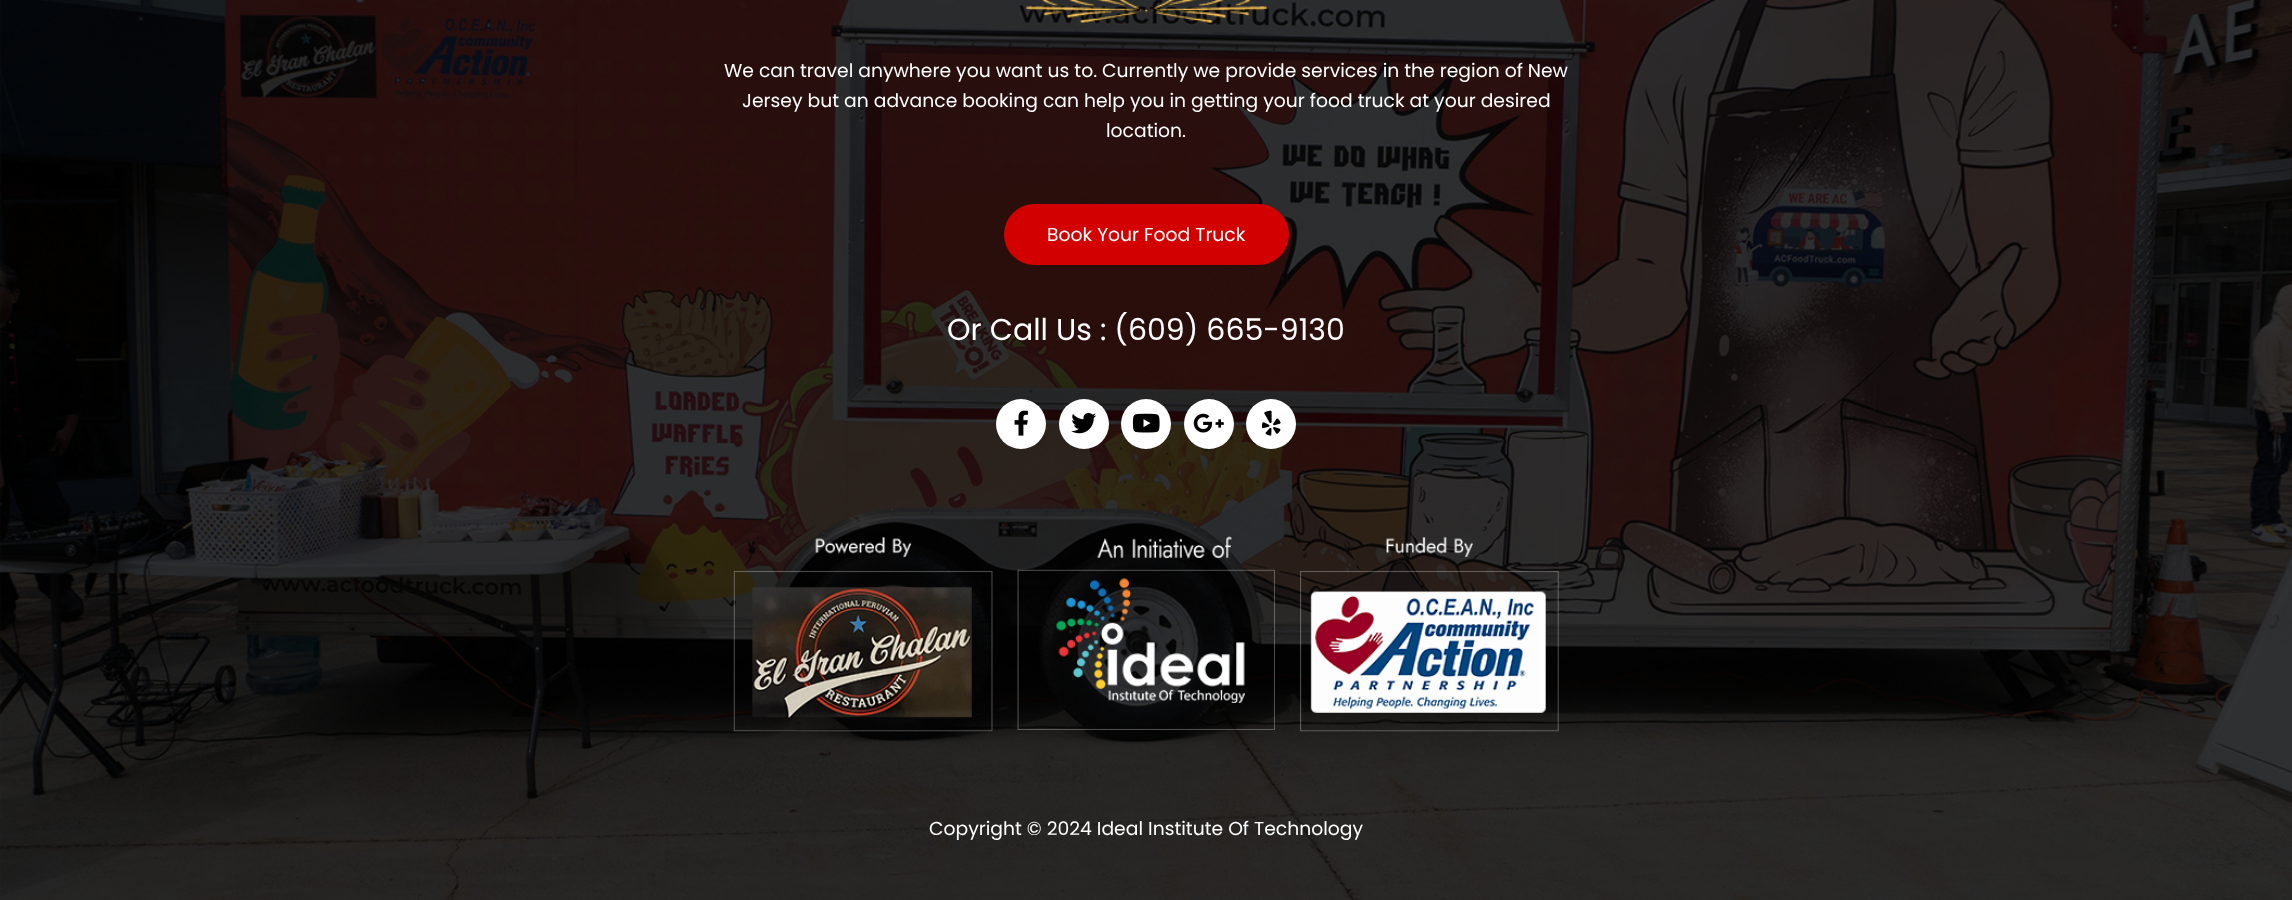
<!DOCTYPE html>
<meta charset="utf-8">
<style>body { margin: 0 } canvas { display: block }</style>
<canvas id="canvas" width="2292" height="900"></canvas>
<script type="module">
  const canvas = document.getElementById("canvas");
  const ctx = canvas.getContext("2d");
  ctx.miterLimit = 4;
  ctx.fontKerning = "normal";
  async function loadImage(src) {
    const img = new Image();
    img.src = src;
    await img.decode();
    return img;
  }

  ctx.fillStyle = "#ffffff";
  ctx.fillRect(0, 0, 2292, 900);
  ctx.drawImage(await loadImage("img1.png"), 0, 0, 2292, 900);
  ctx.drawImage(await loadImage("img2.png"), 1026, 0, 242, 24);
  ctx.font = "18.75px Poppins";
  ctx.fillText("We can travel anywhere you want us to. Currently we provide services in the region of New", 724, 77);
  ctx.fillText("Jersey but an advance booking can help you in getting your food truck at your desired", 742, 107);
  ctx.fillText("location.", 1106, 137);
  ctx.fillStyle = "#d30000";
  ctx.beginPath();
  ctx.roundRect(1004, 204, 285, 61, 30.5);
  ctx.fill();
  ctx.fillStyle = "#ffffff";
  ctx.fillText("Book Your Food Truck", 1047, 241);
  ctx.font = "30px Poppins";
  ctx.fillText("Or Call Us : (609) 665-9130", 947, 340);
  ctx.beginPath();
  ctx.arc(1021, 424, 25, 0, Math.PI * 2);
  ctx.fill();
  ctx.drawImage(await loadImage("img3.png"), 1014, 410, 14, 26);
  ctx.beginPath();
  ctx.arc(1084, 424, 25, 0, Math.PI * 2);
  ctx.fill();
  ctx.drawImage(await loadImage("img4.png"), 1071, 413, 26, 21);
  ctx.beginPath();
  ctx.arc(1146, 424, 25, 0, Math.PI * 2);
  ctx.fill();
  ctx.drawImage(await loadImage("img5.png"), 1132, 413, 28, 20);
  ctx.beginPath();
  ctx.arc(1209, 424, 25, 0, Math.PI * 2);
  ctx.fill();
  ctx.drawImage(await loadImage("img6.png"), 1193, 413, 31, 20);
  ctx.beginPath();
  ctx.arc(1271, 424, 25, 0, Math.PI * 2);
  ctx.fill();
  ctx.drawImage(await loadImage("img7.png"), 1261, 410, 20, 26);
  ctx.drawImage(await loadImage("img8.png"), 733, 536, 260, 196);
  ctx.drawImage(await loadImage("img9.png"), 1017, 536, 258, 194);
  ctx.drawImage(await loadImage("img10.png"), 1300, 536, 259, 196);
  ctx.font = "18.75px Poppins";
  ctx.fillText("Copyright © 2024 Ideal Institute Of Technology", 929, 835);
</script>
